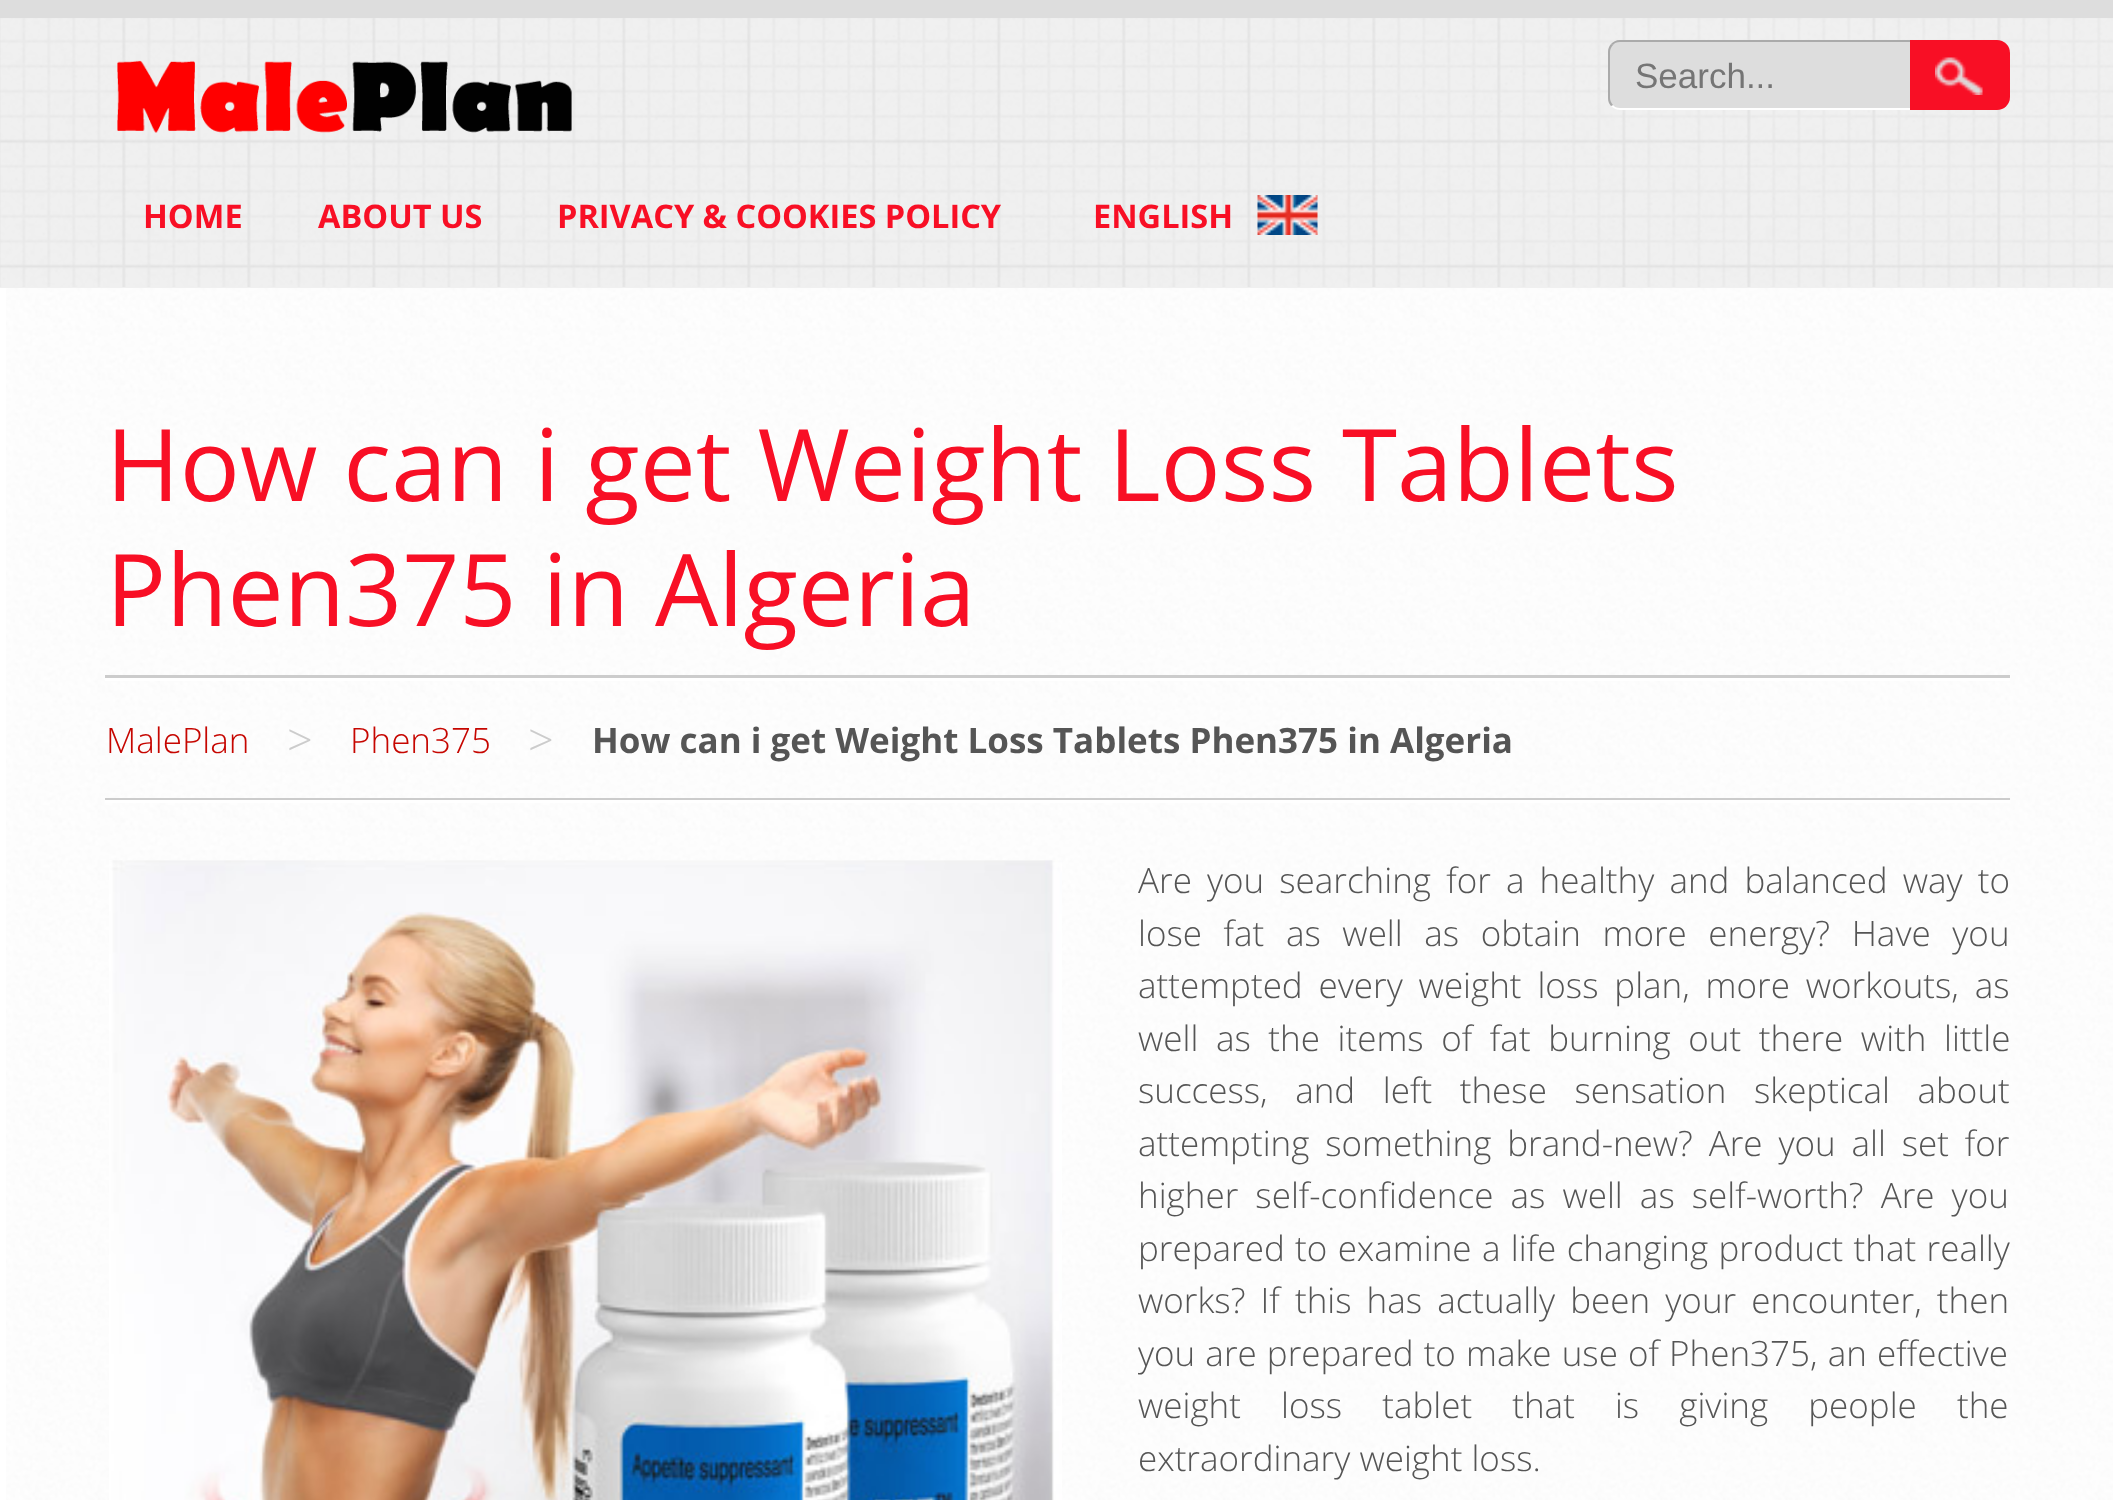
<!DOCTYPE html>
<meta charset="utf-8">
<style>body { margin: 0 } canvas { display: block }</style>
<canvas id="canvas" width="2113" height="1500"></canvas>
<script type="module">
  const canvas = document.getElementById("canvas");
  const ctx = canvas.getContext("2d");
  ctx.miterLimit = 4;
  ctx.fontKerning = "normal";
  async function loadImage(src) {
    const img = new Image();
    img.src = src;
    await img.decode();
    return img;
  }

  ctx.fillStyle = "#ffffff";
  ctx.fillRect(0, 0, 2113, 1500);
  ctx.drawImage(await loadImage("img1.png"), 6, 288, 2107, 1212);
  ctx.fillStyle = "#f0f0f0";
  ctx.fillRect(0, 18, 2113, 270);
  ctx.drawImage(await loadImage("img2.png"), 0, 18, 2113, 269);
  ctx.fillStyle = "#dddddd";
  ctx.fillRect(0, 0, 2113, 18);
  ctx.drawImage(await loadImage("img3.png"), 117, 60, 455, 73);
  ctx.beginPath();
  ctx.roundRect(1608, 40, 305, 70, [13, 0, 0, 13]);
  ctx.fill();
  ctx.fillStyle = "#aaaaaa";
  ctx.beginPath();
  ctx.moveTo(1620, 40);
  ctx.bezierCurveTo(1616, 40, 1613, 42, 1611, 44);
  ctx.lineTo(1613, 45);
  ctx.bezierCurveTo(1614, 43, 1617, 42, 1620, 42);
  ctx.lineTo(1910, 42);
  ctx.lineTo(1912, 40);
  ctx.closePath();
  ctx.fill();
  ctx.fillStyle = "#ffffff";
  ctx.beginPath();
  ctx.moveTo(1620, 110);
  ctx.lineTo(1912, 110);
  ctx.lineTo(1910, 108);
  ctx.lineTo(1620, 108);
  ctx.bezierCurveTo(1617, 108, 1614, 107, 1613, 105);
  ctx.lineTo(1611, 106);
  ctx.bezierCurveTo(1613, 108, 1616, 110, 1620, 110);
  ctx.closePath();
  ctx.fill();
  ctx.fillStyle = "#aaaaaa";
  ctx.beginPath();
  ctx.moveTo(1611, 44);
  ctx.bezierCurveTo(1609, 46, 1608, 49, 1608, 52);
  ctx.lineTo(1608, 98);
  ctx.bezierCurveTo(1608, 101, 1609, 104, 1611, 106);
  ctx.lineTo(1613, 105);
  ctx.bezierCurveTo(1611, 103, 1610, 100, 1610, 98);
  ctx.lineTo(1610, 52);
  ctx.bezierCurveTo(1610, 50, 1611, 47, 1613, 45);
  ctx.closePath();
  ctx.fill();
  ctx.font = "35px Liberation Sans";
  ctx.fillStyle = "#757575";
  ctx.fillText("Search...", 1635, 88);
  ctx.fillStyle = "#f80f25";
  ctx.beginPath();
  ctx.roundRect(1910, 40, 100, 70, [0, 13, 13, 0]);
  ctx.fill();
  ctx.drawImage(await loadImage("img4.png"), 1935, 57, 48, 38);
  ctx.font = "bold 32.5px Open Sans";
  ctx.fillText("HOME", 143, 228);
  ctx.fillText("ABOUT US", 318, 228);
  ctx.fillText("PRIVACY & COOKIES POLICY", 557, 228);
  ctx.fillText("ENGLISH", 1093, 228);
  ctx.drawImage(await loadImage("img5.png"), 1257, 195, 61, 40);
  ctx.font = "100px Open Sans";
  ctx.fillText("How can i get Weight Loss Tablets", 106, 501);
  ctx.fillText("Phen375 in Algeria", 106, 626);
  ctx.fillStyle = "#cccccc";
  ctx.fillRect(105, 675, 1905, 3);
  ctx.fillStyle = "#ffffff";
  ctx.fillRect(105, 678, 1905, 3);
  ctx.font = "300 35px Open Sans";
  ctx.fillStyle = "#c60600";
  ctx.fillText("MalePlan", 106, 753);
  ctx.font = "300 45px Open Sans";
  ctx.fillStyle = "#cccccc";
  ctx.fillText(">", 287, 756);
  ctx.font = "300 35px Open Sans";
  ctx.fillStyle = "#c60600";
  ctx.fillText("Phen375", 350, 753);
  ctx.font = "300 45px Open Sans";
  ctx.fillStyle = "#cccccc";
  ctx.fillText(">", 528, 756);
  ctx.font = "bold 35px Open Sans";
  ctx.fillStyle = "#555555";
  ctx.fillText("How can i get Weight Loss Tablets Phen375 in Algeria", 592, 753);
  ctx.fillStyle = "#cccccc";
  ctx.fillRect(105, 798, 1905, 2);
  ctx.fillStyle = "#ffffff";
  ctx.fillRect(105, 800, 1905, 3);
  ctx.drawImage(await loadImage("img6.png"), 109, 860, 953, 640);
  ctx.wordSpacing = "6px";
  ctx.font = "300 35px Open Sans";
  ctx.fillStyle = "#555555";
  ctx.fillText("Are you searching for a healthy and balanced way to", 1138, 893);
  ctx.wordSpacing = "12.5px";
  ctx.fillText("lose fat as well as obtain more energy? Have you", 1138, 946);
  ctx.wordSpacing = "6.75px";
  ctx.fillText("attempted every weight loss plan, more workouts, as", 1138, 998);
  ctx.wordSpacing = "8.5px";
  ctx.fillText("well as the items of fat burning out there with little", 1138, 1051);
  ctx.wordSpacing = "18.5px";
  ctx.fillText("success, and left these sensation skeptical about", 1138, 1103);
  ctx.wordSpacing = "6.75px";
  ctx.fillText("attempting something brand-new? Are you all set for", 1138, 1156);
  ctx.wordSpacing = "8px";
  ctx.fillText("higher self-confidence as well as self-worth? Are you", 1138, 1208);
  ctx.wordSpacing = "1.25px";
  ctx.fillText("prepared to examine a life changing product that really", 1138, 1261);
  ctx.wordSpacing = "6px";
  ctx.fillText("works? If this has actually been your encounter, then", 1138, 1313);
  ctx.wordSpacing = "1px";
  ctx.fillText("you are prepared to make use of Phen375, an effective", 1138, 1366);
  ctx.wordSpacing = "31px";
  ctx.fillText("weight loss tablet that is giving people the", 1138, 1418);
  ctx.wordSpacing = "0px";
  ctx.fillText("extraordinary weight loss.", 1138, 1471);
</script>
